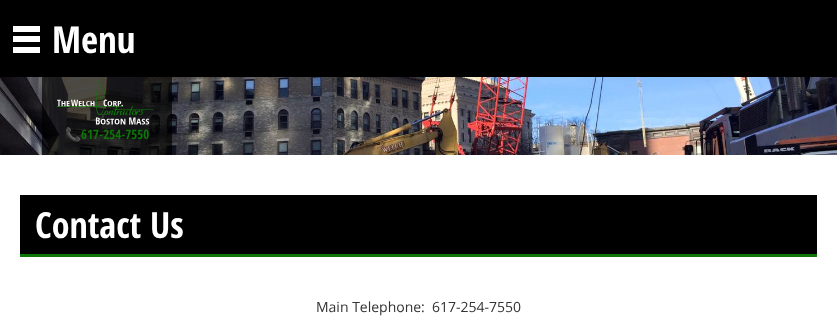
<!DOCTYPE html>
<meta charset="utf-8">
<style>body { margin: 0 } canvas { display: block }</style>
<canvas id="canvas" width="837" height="326"></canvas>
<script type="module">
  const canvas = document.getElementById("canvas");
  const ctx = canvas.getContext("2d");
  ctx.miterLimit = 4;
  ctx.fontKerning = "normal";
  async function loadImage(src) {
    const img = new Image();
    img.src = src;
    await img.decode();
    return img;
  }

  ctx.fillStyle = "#ffffff";
  ctx.fillRect(0, 0, 837, 326);
  ctx.fillStyle = "#000000";
  ctx.fillRect(0, 0, 837, 77);
  ctx.fillStyle = "#ffffff";
  ctx.fillRect(13, 26, 27, 6);
  ctx.font = "bold 37px Open Sans Condensed";
  ctx.fillText("Menu", 52, 53);
  ctx.fillRect(13, 36, 27, 6);
  ctx.fillRect(13, 47, 27, 6);
  ctx.drawImage(await loadImage("img1.png"), 0, 77, 837, 78);
  ctx.fillStyle = "rgba(0, 0, 0, 0.7)";
  ctx.fillRect(42, 77, 130, 78);
  ctx.drawImage(await loadImage("img2.png"), 56, 77, 98, 48);
  ctx.font = "13px Noto Color Emoji";
  ctx.fillStyle = "#0e7609";
  ctx.fillText("📞", 65, 139);
  ctx.font = "bold 13px Open Sans Condensed";
  ctx.fillText("617-254-7550", 81, 139);
  ctx.fillStyle = "#000000";
  ctx.fillRect(20, 195, 797, 59);
  ctx.fillStyle = "#0e7609";
  ctx.fillRect(20, 254, 797, 3);
  ctx.font = "bold 36px Open Sans Condensed";
  ctx.fillStyle = "#ffffff";
  ctx.fillText("Contact Us", 35, 238);
  ctx.font = "14px Open Sans";
  ctx.fillStyle = "#333333";
  ctx.fillText("Main Telephone:  617-254-7550", 316, 312);
</script>
